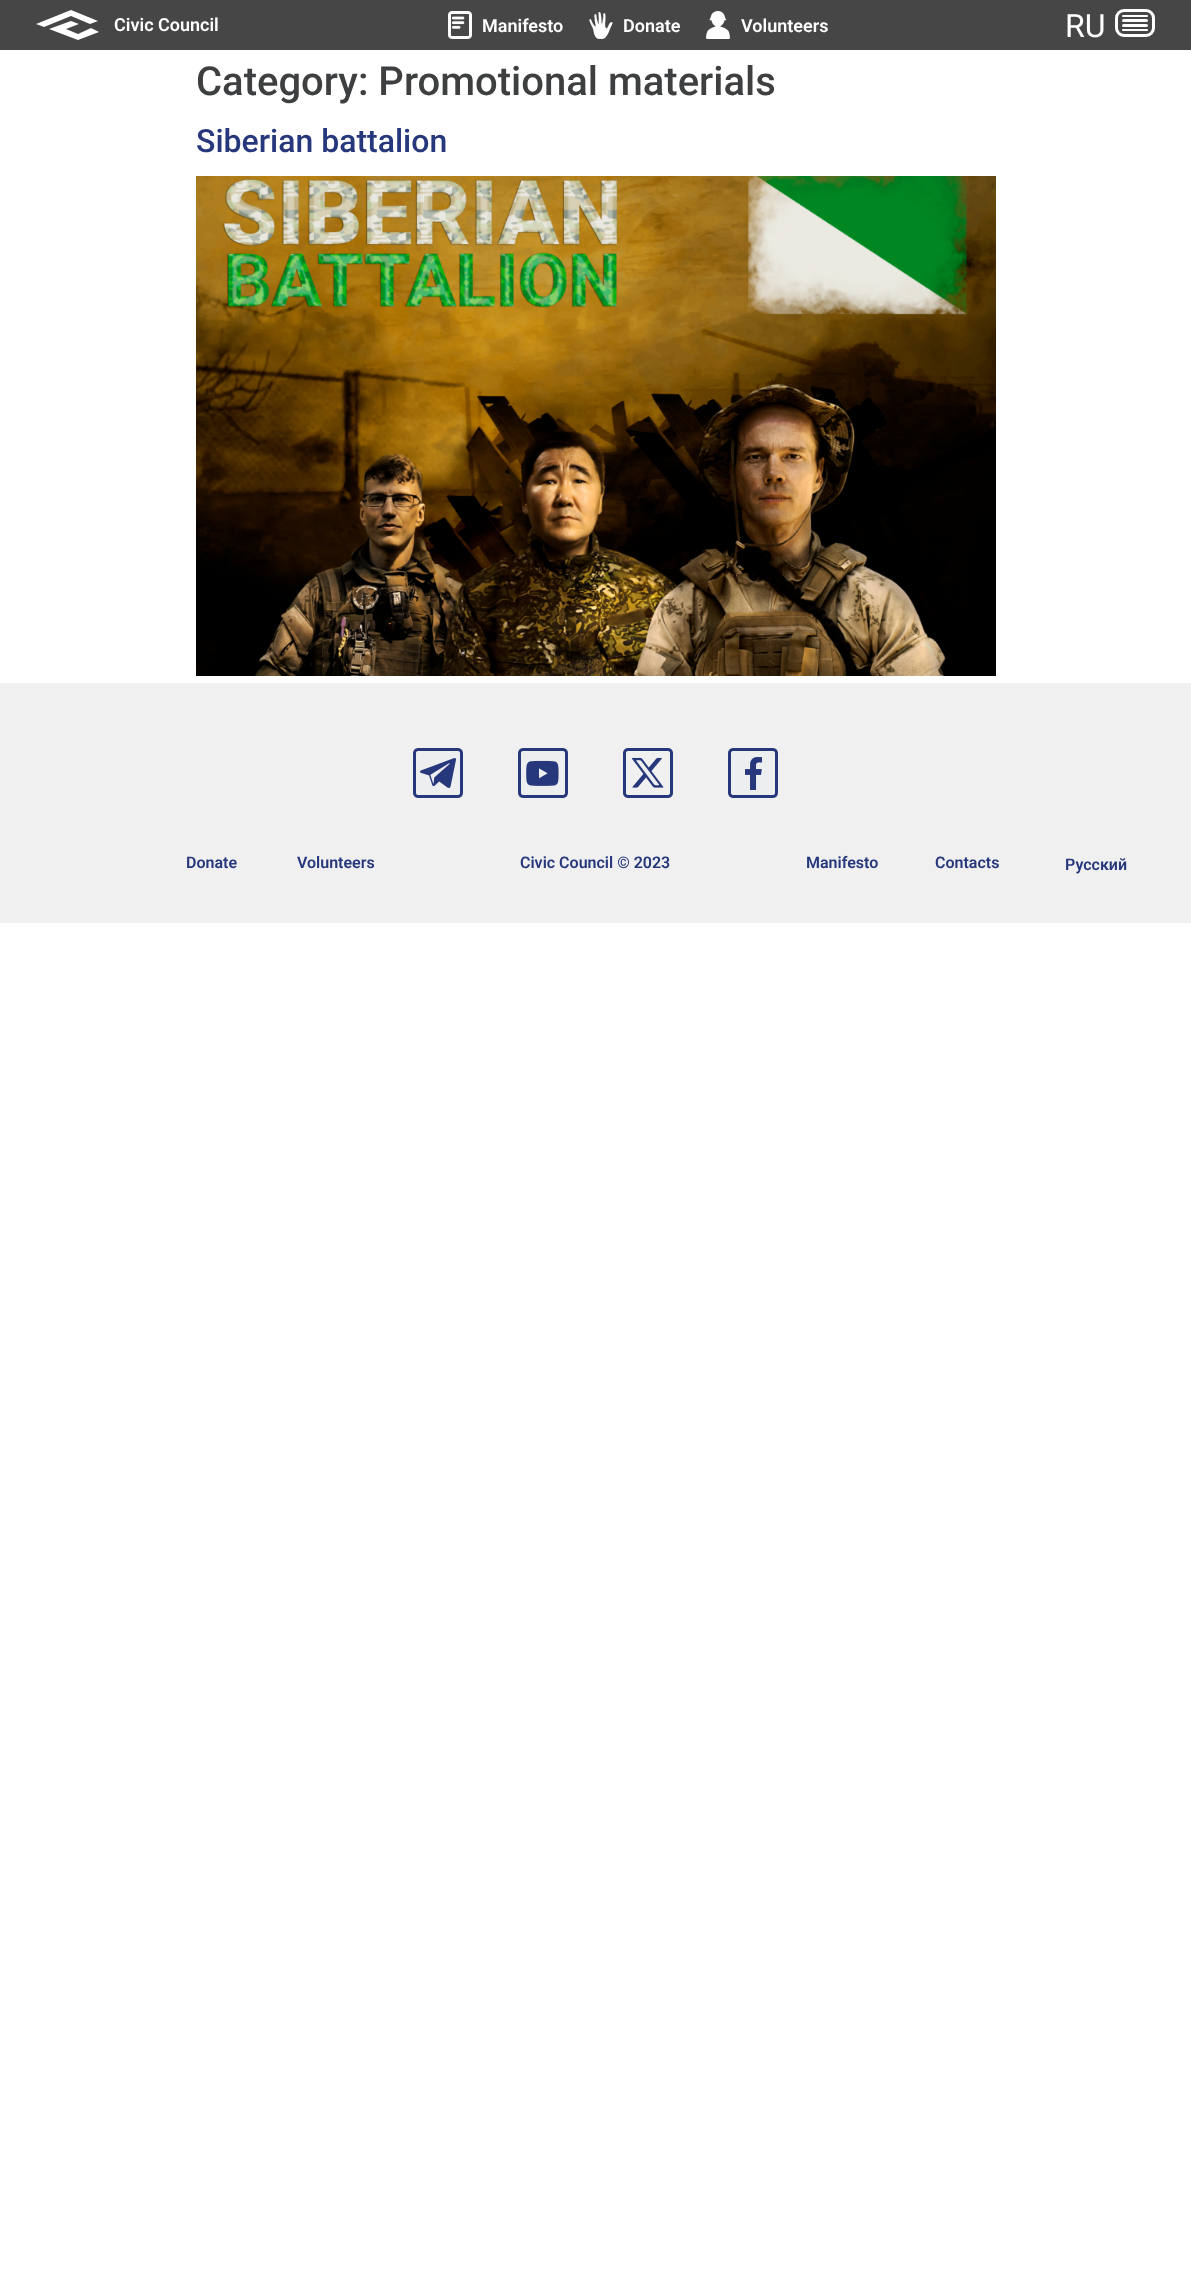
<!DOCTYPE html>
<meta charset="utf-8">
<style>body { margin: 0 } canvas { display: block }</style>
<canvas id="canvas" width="1191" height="2287"></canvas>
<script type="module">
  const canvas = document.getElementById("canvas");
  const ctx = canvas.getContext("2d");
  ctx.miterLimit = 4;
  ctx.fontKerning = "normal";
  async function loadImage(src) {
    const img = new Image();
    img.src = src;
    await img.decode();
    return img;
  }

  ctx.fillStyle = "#ffffff";
  ctx.fillRect(0, 0, 1191, 2287);
  ctx.fillStyle = "#464646";
  ctx.fillRect(0, 0, 1191, 50);
  ctx.fillStyle = "#ffffff";
  ctx.beginPath();
  ctx.moveTo(44, 27);
  ctx.lineTo(71, 16);
  ctx.lineTo(90, 24);
  ctx.lineTo(98, 21);
  ctx.lineTo(71, 10);
  ctx.lineTo(36, 24);
  ctx.closePath();
  ctx.fill("evenodd");
  ctx.beginPath();
  ctx.moveTo(49, 29);
  ctx.lineTo(78, 40);
  ctx.lineTo(99, 32);
  ctx.lineTo(91, 28);
  ctx.lineTo(78, 34);
  ctx.lineTo(66, 29);
  ctx.lineTo(79, 24);
  ctx.lineTo(71, 21);
  ctx.closePath();
  ctx.fill("evenodd");
  ctx.font = "600 18px Roboto";
  ctx.fillText("Civic Council", 114, 31);
  ctx.drawImage(await loadImage("img1.png"), 448, 11, 24, 28);
  ctx.fillText("Manifesto", 482, 32);
  ctx.drawImage(await loadImage("img2.png"), 589, 12, 24, 27);
  ctx.fillText("Donate", 623, 32);
  ctx.drawImage(await loadImage("img3.png"), 706, 11, 24, 28);
  ctx.fillText("Volunteers", 741, 32);
  ctx.font = "32px Roboto";
  ctx.fillText("RU", 1065, 37);
  ctx.beginPath();
  ctx.roundRect(1116.5, 10.5, 37, 25, 7.5);
  ctx.strokeStyle = "#ffffff";
  ctx.lineWidth = 3;
  ctx.stroke();
  ctx.beginPath();
  ctx.roundRect(1122, 15, 26, 2, 1);
  ctx.fill();
  ctx.beginPath();
  ctx.roundRect(1122, 19, 26, 3, 1.5);
  ctx.fill();
  ctx.beginPath();
  ctx.roundRect(1122, 24, 26, 3, 1.5);
  ctx.fill();
  ctx.beginPath();
  ctx.roundRect(1122, 29, 26, 2, 1);
  ctx.fill();
  ctx.font = "500 40px Roboto";
  ctx.fillStyle = "#3d3f40";
  ctx.fillText("Category: Promotional materials", 196, 95);
  ctx.font = "500 32px Roboto";
  ctx.fillStyle = "#26377c";
  ctx.fillText("Siberian battalion", 196, 152);
  ctx.drawImage(await loadImage("img4.png"), 196, 176, 800, 500);
  ctx.fillStyle = "#f0f0f0";
  ctx.fillRect(0, 683, 1191, 240);
  ctx.drawImage(await loadImage("img5.png"), 413, 748, 50, 50);
  ctx.drawImage(await loadImage("img6.png"), 518, 748, 50, 50);
  ctx.drawImage(await loadImage("img7.png"), 623, 748, 50, 50);
  ctx.drawImage(await loadImage("img8.png"), 728, 748, 50, 50);
  ctx.font = "600 16px Roboto";
  ctx.fillStyle = "#26377c";
  ctx.fillText("Donate", 186, 868);
  ctx.fillText("Volunteers", 297, 868);
  ctx.fillText("Civic Council © 2023", 520, 868);
  ctx.fillText("Manifesto", 806, 868);
  ctx.fillText("Contacts", 935, 868);
  ctx.fillText("Русский", 1065, 870);
</script>
